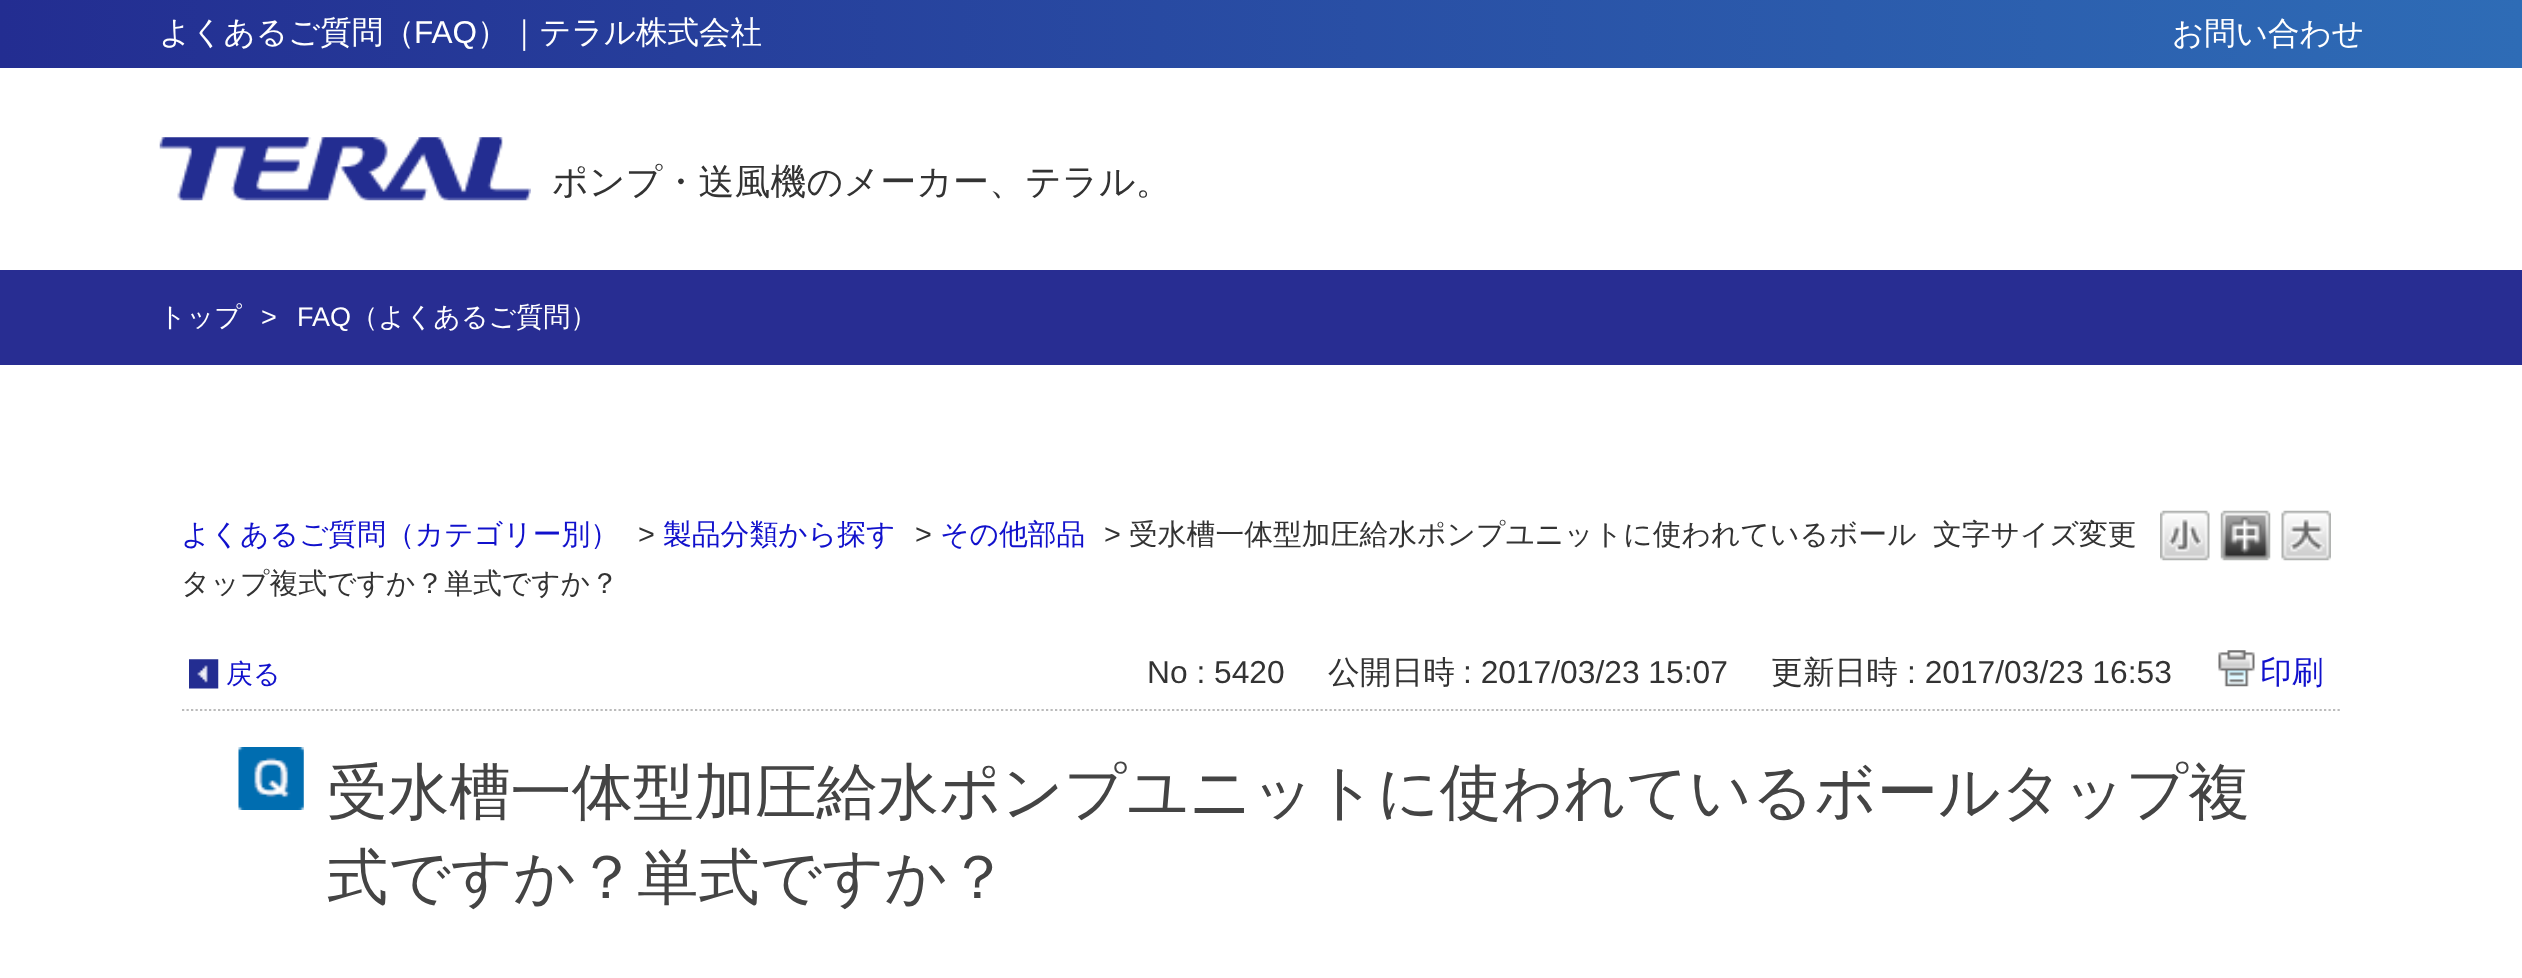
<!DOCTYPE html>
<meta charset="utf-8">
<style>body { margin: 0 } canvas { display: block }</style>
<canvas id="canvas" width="2522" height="978"></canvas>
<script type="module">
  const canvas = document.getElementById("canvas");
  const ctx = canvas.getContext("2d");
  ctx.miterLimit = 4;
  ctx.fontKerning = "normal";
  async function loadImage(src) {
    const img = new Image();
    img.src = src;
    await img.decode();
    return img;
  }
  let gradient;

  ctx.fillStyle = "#ffffff";
  ctx.fillRect(0, 0, 2522, 978);
  gradient = ctx.createLinearGradient(0, 34, 2522, 34);
  gradient.addColorStop(0, "#232d91");
  gradient.addColorStop(1, "#2e6cb6");
  ctx.fillStyle = gradient;
  ctx.fillRect(0, 0, 2522, 68);
  ctx.font = "500 31.5px WenQuanYi Zen Hei";
  ctx.fillStyle = "#ffffff";
  ctx.fillText("よくあるご質問（", 159, 43);
  ctx.font = "31.5px Liberation Sans";
  ctx.fillText("FAQ", 414, 43);
  ctx.font = "500 31.5px WenQuanYi Zen Hei";
  ctx.fillText("）｜テラル株式会社", 477, 43);
  ctx.fillText("お問い合わせ", 2172, 44);
  ctx.drawImage(await loadImage("img1.png"), 159, 137, 372, 64);
  ctx.font = "500 36px WenQuanYi Zen Hei";
  ctx.fillStyle = "#333333";
  ctx.fillText("ポンプ・送風機のメーカー、テラル。", 552, 194);
  ctx.fillStyle = "#282d92";
  ctx.fillRect(0, 270, 2522, 95);
  ctx.font = "500 27px WenQuanYi Zen Hei";
  ctx.fillStyle = "#ffffff";
  ctx.fillText("トップ", 159, 326);
  ctx.font = "27px Liberation Sans";
  ctx.fillText(">", 261, 326);
  ctx.fillText("FAQ", 297, 326);
  ctx.font = "500 27px WenQuanYi Zen Hei";
  ctx.fillText("（よくあるご質問）", 351, 326);
  ctx.font = "500 28.8px WenQuanYi Zen Hei";
  ctx.fillStyle = "#1111cc";
  ctx.fillText("よくあるご質問（カテゴリー別）", 181, 544);
  ctx.font = "28.8px Liberation Sans";
  ctx.fillStyle = "#333333";
  ctx.fillText(">", 638, 544);
  ctx.font = "500 28.8px WenQuanYi Zen Hei";
  ctx.fillStyle = "#1111cc";
  ctx.fillText("製品分類から探す", 663, 544);
  ctx.font = "28.8px Liberation Sans";
  ctx.fillStyle = "#333333";
  ctx.fillText(">", 915, 544);
  ctx.font = "500 28.8px WenQuanYi Zen Hei";
  ctx.fillStyle = "#1111cc";
  ctx.fillText("その他部品", 940, 544);
  ctx.font = "28.8px Liberation Sans";
  ctx.fillStyle = "#333333";
  ctx.fillText(">", 1104, 544);
  ctx.font = "500 28.8px WenQuanYi Zen Hei";
  ctx.fillText("受水槽一体型加圧給水ポンプユニットに使われているボール", 1129, 544);
  ctx.fillText("タップ複式ですか？単式ですか？", 181, 593);
  ctx.fillText("文字サイズ変更", 1933, 544);
  ctx.drawImage(await loadImage("img2.png"), 2160, 510, 50, 51);
  ctx.drawImage(await loadImage("img3.png"), 2220, 510, 51, 51);
  ctx.drawImage(await loadImage("img4.png"), 2281, 510, 50, 51);
  ctx.beginPath();
  ctx.moveTo(182, 710);
  ctx.lineTo(2342, 710);
  ctx.strokeStyle = "#bbbbbb";
  ctx.lineWidth = 2.2;
  ctx.setLineDash([2.25, 2.25]);
  ctx.stroke();
  ctx.drawImage(await loadImage("img5.png"), 189, 659, 30, 30);
  ctx.font = "500 27px WenQuanYi Zen Hei";
  ctx.fillStyle = "#1111cc";
  ctx.fillText("戻る", 226, 683);
  ctx.font = "31.75px Liberation Sans";
  ctx.fillStyle = "#333333";
  ctx.fillText("No : 5420", 1147, 683);
  ctx.font = "500 31.75px WenQuanYi Zen Hei";
  ctx.fillText("公開日時", 1328, 683);
  ctx.font = "31.75px Liberation Sans";
  ctx.fillText(": 2017/03/23 15:07", 1463, 683);
  ctx.font = "500 31.75px WenQuanYi Zen Hei";
  ctx.fillText("更新日時", 1771, 683);
  ctx.font = "31.75px Liberation Sans";
  ctx.fillText(": 2017/03/23 16:53", 1907, 683);
  ctx.drawImage(await loadImage("img6.png"), 2218, 650, 37, 37);
  ctx.font = "500 31.75px WenQuanYi Zen Hei";
  ctx.fillStyle = "#1111cc";
  ctx.fillText("印刷", 2260, 683);
  ctx.drawImage(await loadImage("img7.png"), 238, 747, 66, 63);
  ctx.font = "500 61.2px WenQuanYi Zen Hei";
  ctx.fillStyle = "#444444";
  ctx.fillText("受水槽一体型加圧給水ポンプユニットに使われているボールタップ複", 327, 813);
  ctx.fillText("式ですか？単式ですか？", 327, 898);
</script>
